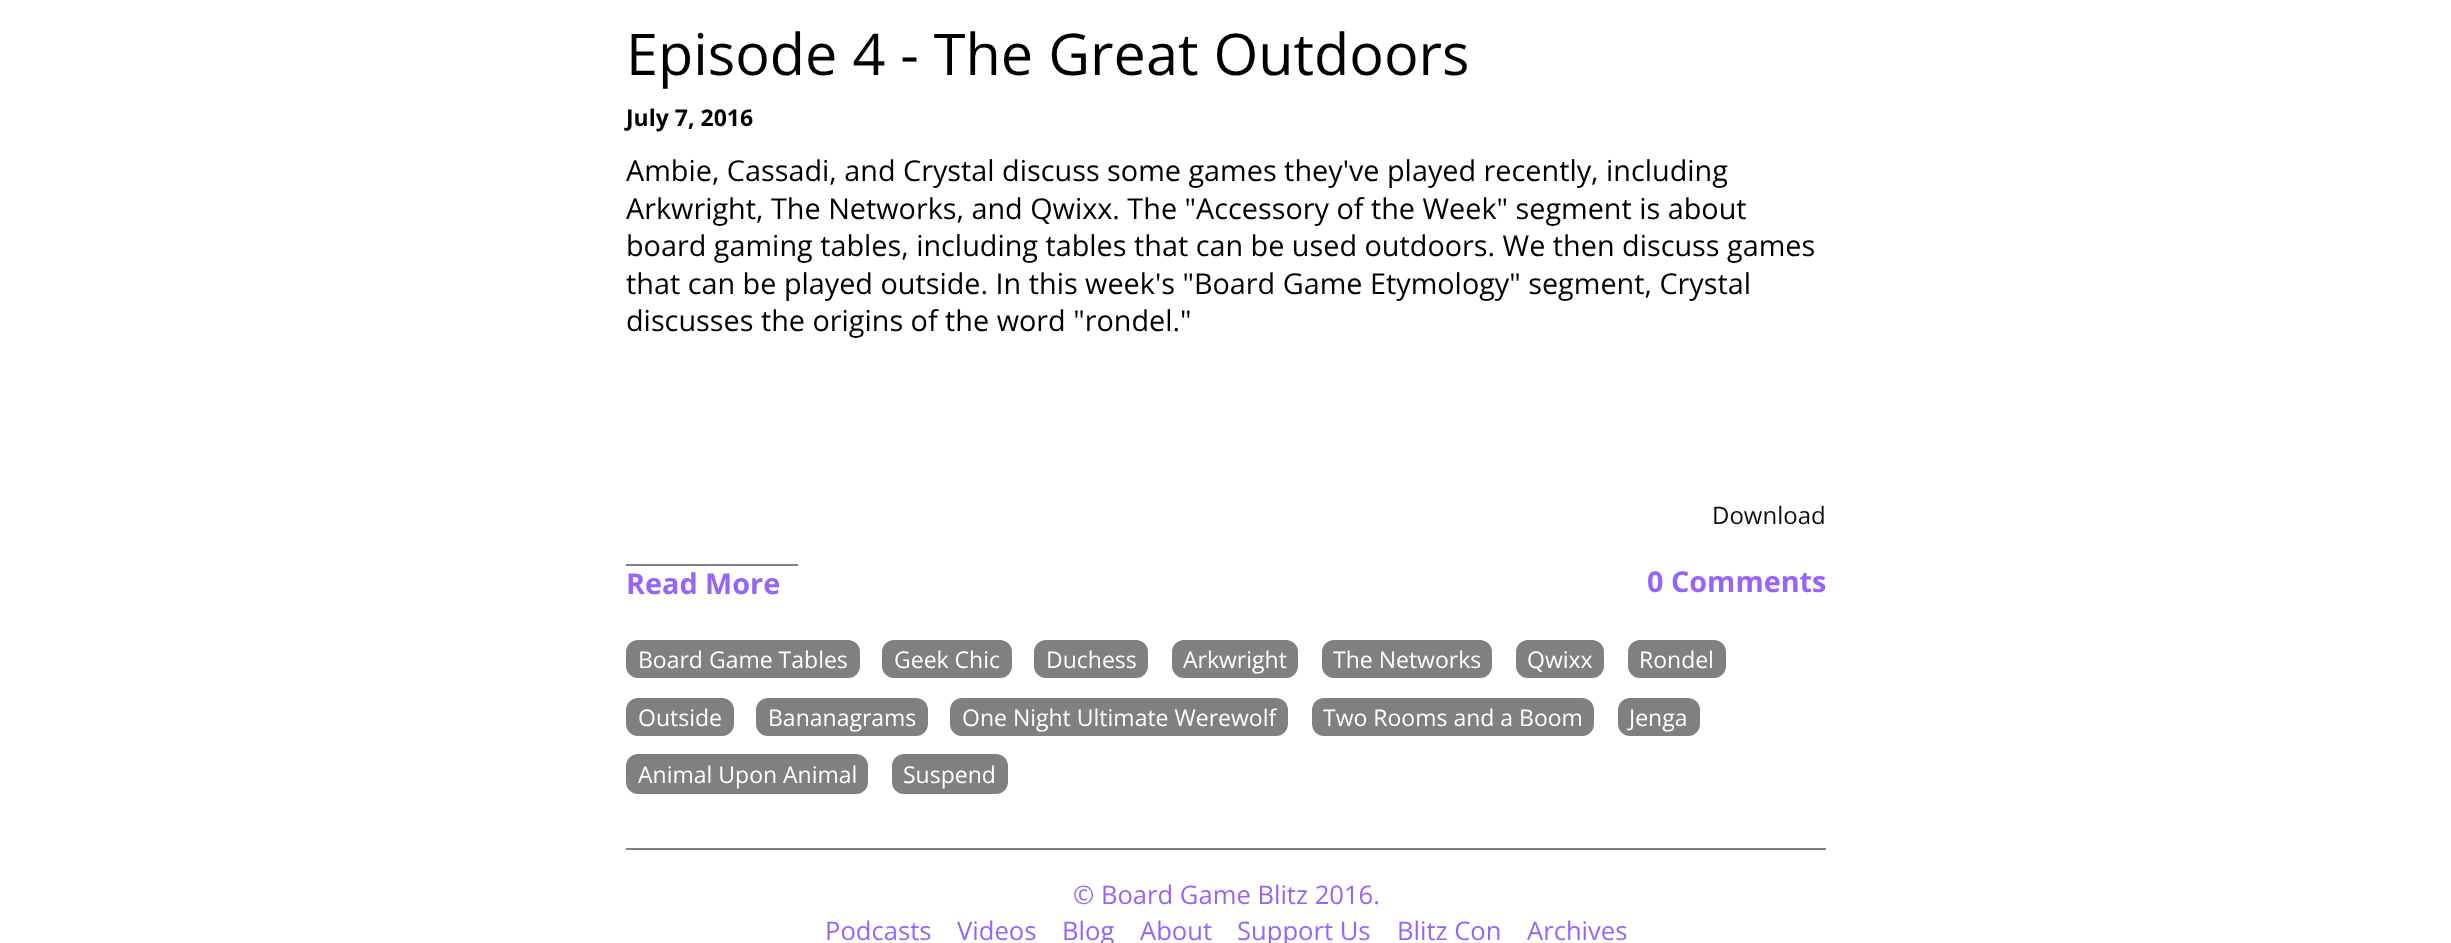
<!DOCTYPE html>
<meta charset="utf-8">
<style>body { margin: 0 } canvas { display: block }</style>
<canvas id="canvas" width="2451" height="943"></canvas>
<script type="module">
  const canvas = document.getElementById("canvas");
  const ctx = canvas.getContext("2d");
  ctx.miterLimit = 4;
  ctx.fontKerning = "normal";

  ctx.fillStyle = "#ffffff";
  ctx.fillRect(0, 0, 2451, 943);
  ctx.fillStyle = "#808080";
  ctx.fillRect(626, 848, 1200, 2);
  ctx.font = "57.6px Open Sans";
  ctx.fillStyle = "#000000";
  ctx.fillText("Episode 4 - The Great Outdoors", 626, 75);
  ctx.font = "bold 23px Open Sans";
  ctx.fillText("July 7, 2016", 626, 126);
  ctx.font = "28.8px Open Sans";
  ctx.fillText("Ambie, Cassadi, and Crystal discuss some games they've played recently, including", 626, 181);
  ctx.fillText("Arkwright, The Networks, and Qwixx. The \"Accessory of the Week\" segment is about", 626, 219);
  ctx.fillText("board gaming tables, including tables that can be used outdoors. We then discuss games", 626, 256);
  ctx.fillText("that can be played outside. In this week's \"Board Game Etymology\" segment, Crystal", 626, 294);
  ctx.fillText("discusses the origins of the word \"rondel.\"", 626, 331);
  ctx.font = "24px Open Sans";
  ctx.fillStyle = "#0f0f0f";
  ctx.fillText("Download", 1712, 524);
  ctx.fillStyle = "#808080";
  ctx.fillRect(626, 564, 172, 2);
  ctx.font = "bold 28.8px Open Sans";
  ctx.fillStyle = "#9664fa";
  ctx.fillText("Read More", 626, 594);
  ctx.fillText("0 Comments", 1647, 592);
  ctx.fillStyle = "#808080";
  ctx.beginPath();
  ctx.roundRect(626, 640, 234, 38, 12);
  ctx.fill();
  ctx.font = "23px Open Sans";
  ctx.fillStyle = "#ffffff";
  ctx.fillText("Board Game Tables", 638, 668);
  ctx.fillStyle = "#808080";
  ctx.beginPath();
  ctx.roundRect(882, 640, 130, 38, 12);
  ctx.fill();
  ctx.fillStyle = "#ffffff";
  ctx.fillText("Geek Chic", 894, 668);
  ctx.fillStyle = "#808080";
  ctx.beginPath();
  ctx.roundRect(1034, 640, 114, 38, 12);
  ctx.fill();
  ctx.fillStyle = "#ffffff";
  ctx.fillText("Duchess", 1046, 668);
  ctx.fillStyle = "#808080";
  ctx.beginPath();
  ctx.roundRect(1172, 640, 126, 38, 12);
  ctx.fill();
  ctx.fillStyle = "#ffffff";
  ctx.fillText("Arkwright", 1183, 668);
  ctx.fillStyle = "#808080";
  ctx.beginPath();
  ctx.roundRect(1322, 640, 170, 38, 12);
  ctx.fill();
  ctx.fillStyle = "#ffffff";
  ctx.fillText("The Networks", 1333, 668);
  ctx.fillStyle = "#808080";
  ctx.beginPath();
  ctx.roundRect(1516, 640, 88, 38, 12);
  ctx.fill();
  ctx.fillStyle = "#ffffff";
  ctx.fillText("Qwixx", 1527, 668);
  ctx.fillStyle = "#808080";
  ctx.beginPath();
  ctx.roundRect(1628, 640, 98, 38, 12);
  ctx.fill();
  ctx.fillStyle = "#ffffff";
  ctx.fillText("Rondel", 1639, 668);
  ctx.fillStyle = "#808080";
  ctx.beginPath();
  ctx.roundRect(626, 698, 108, 38, 12);
  ctx.fill();
  ctx.fillStyle = "#ffffff";
  ctx.fillText("Outside", 638, 726);
  ctx.fillStyle = "#808080";
  ctx.beginPath();
  ctx.roundRect(756, 698, 172, 38, 12);
  ctx.fill();
  ctx.fillStyle = "#ffffff";
  ctx.fillText("Bananagrams", 768, 726);
  ctx.fillStyle = "#808080";
  ctx.beginPath();
  ctx.roundRect(950, 698, 338, 38, 12);
  ctx.fill();
  ctx.fillStyle = "#ffffff";
  ctx.fillText("One Night Ultimate Werewolf", 962, 726);
  ctx.fillStyle = "#808080";
  ctx.beginPath();
  ctx.roundRect(1312, 698, 282, 38, 12);
  ctx.fill();
  ctx.fillStyle = "#ffffff";
  ctx.fillText("Two Rooms and a Boom", 1323, 726);
  ctx.fillStyle = "#808080";
  ctx.beginPath();
  ctx.roundRect(1618, 698, 82, 38, 12);
  ctx.fill();
  ctx.fillStyle = "#ffffff";
  ctx.fillText("Jenga", 1629, 726);
  ctx.fillStyle = "#808080";
  ctx.beginPath();
  ctx.roundRect(626, 754, 242, 40, 12);
  ctx.fill();
  ctx.fillStyle = "#ffffff";
  ctx.fillText("Animal Upon Animal", 638, 783);
  ctx.fillStyle = "#808080";
  ctx.beginPath();
  ctx.roundRect(892, 754, 116, 40, 12);
  ctx.fill();
  ctx.fillStyle = "#ffffff";
  ctx.fillText("Suspend", 903, 783);
  ctx.font = "25.6px Open Sans";
  ctx.fillStyle = "#9664fa";
  ctx.fillText("© Board Game Blitz 2016.", 1073, 904);
  ctx.fillText("Podcasts", 825, 940);
  ctx.fillText("Videos", 957, 940);
  ctx.fillText("Blog", 1062, 940);
  ctx.fillText("About", 1140, 940);
  ctx.fillText("Support Us", 1237, 940);
  ctx.fillText("Blitz Con", 1397, 940);
  ctx.fillText("Archives", 1527, 940);
</script>
